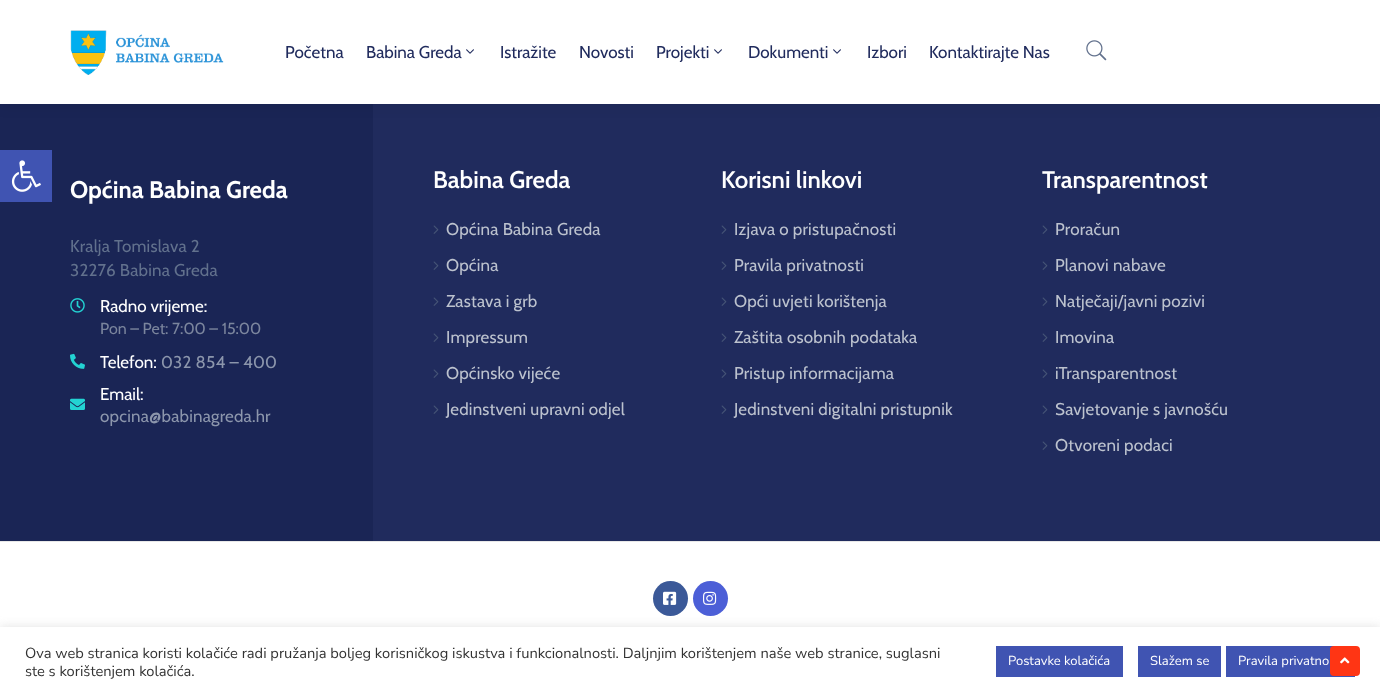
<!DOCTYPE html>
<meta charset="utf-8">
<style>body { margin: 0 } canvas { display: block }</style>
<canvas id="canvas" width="1380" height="696"></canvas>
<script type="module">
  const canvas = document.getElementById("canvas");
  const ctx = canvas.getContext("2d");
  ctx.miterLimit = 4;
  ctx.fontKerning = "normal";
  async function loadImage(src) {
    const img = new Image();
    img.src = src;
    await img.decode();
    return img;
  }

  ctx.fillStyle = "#ffffff";
  ctx.fillRect(0, 0, 1380, 696);
  ctx.fillStyle = "#1a2555";
  ctx.fillRect(0, 104, 373, 437);
  ctx.fillStyle = "#4054b2";
  ctx.fillRect(0, 150, 52, 52);
  ctx.drawImage(await loadImage("img1.png"), 11, 160, 30, 32);
  ctx.fillStyle = "#202b5d";
  ctx.fillRect(373, 104, 1007, 437);
  ctx.fillStyle = "rgba(0, 0, 0, 0.1)";
  ctx.filter = "blur(7.5px)";
  ctx.beginPath();
  ctx.rect(0, 0, 1380, 104);
  ctx.fill();
  ctx.filter = "none";
  ctx.fillStyle = "#ffffff";
  ctx.fillRect(0, 0, 1380, 104);
  ctx.drawImage(await loadImage("img2.png"), 70, 30, 154, 45);
  ctx.font = "17px Cabin";
  ctx.fillStyle = "#202b5d";
  ctx.fillText("Početna", 285, 58);
  ctx.fillText("Babina Greda", 366, 58);
  ctx.drawImage(await loadImage("img3.png"), 466, 49, 8, 5);
  ctx.fillText("Istražite", 500, 58);
  ctx.fillText("Novosti", 579, 58);
  ctx.fillText("Projekti", 656, 58);
  ctx.drawImage(await loadImage("img3.png"), 714, 49, 8, 5);
  ctx.fillText("Dokumenti", 748, 58);
  ctx.drawImage(await loadImage("img3.png"), 833, 49, 8, 5);
  ctx.fillText("Izbori", 867, 58);
  ctx.fillText("Kontaktirajte Nas", 929, 58);
  ctx.drawImage(await loadImage("img4.png"), 1086, 40, 21, 21);
  ctx.font = "bold 24px Cabin";
  ctx.fillStyle = "#ffffff";
  ctx.fillText("Općina Babina Greda", 70, 198);
  ctx.letterSpacing = "0.2px";
  ctx.font = "17px Cabin";
  ctx.fillStyle = "#62718d";
  ctx.fillText("Kralja Tomislava 2", 70, 252);
  ctx.fillText("32276 Babina Greda", 70, 276);
  ctx.drawImage(await loadImage("img5.png"), 70, 298, 15, 15);
  ctx.letterSpacing = "0px";
  ctx.fillStyle = "#ffffff";
  ctx.fillText("Radno vrijeme:", 100, 312);
  ctx.font = "16px Cabin";
  ctx.fillStyle = "#7b859d";
  ctx.fillText("Pon – Pet: 7:00 – 15:00", 100, 334);
  ctx.drawImage(await loadImage("img6.png"), 70, 353, 15, 16);
  ctx.font = "17px Cabin";
  ctx.fillStyle = "#ffffff";
  ctx.fillText("Telefon:", 100, 368);
  ctx.letterSpacing = "0.2px";
  ctx.fillStyle = "#8c96ac";
  ctx.fillText("032 854 – 400", 161, 368);
  ctx.drawImage(await loadImage("img7.png"), 70, 398, 15, 12);
  ctx.letterSpacing = "0px";
  ctx.fillStyle = "#ffffff";
  ctx.fillText("Email:", 100, 400);
  ctx.letterSpacing = "0.2px";
  ctx.fillStyle = "#8c96ac";
  ctx.fillText("opcina@babinagreda.hr", 100, 422);
  ctx.letterSpacing = "0px";
  ctx.font = "600 24px Cabin";
  ctx.fillStyle = "#ffffff";
  ctx.fillText("Babina Greda", 433, 188);
  ctx.drawImage(await loadImage("img8.png"), 433, 225, 6, 9);
  ctx.letterSpacing = "0.2px";
  ctx.font = "17px Cabin";
  ctx.fillStyle = "#bcc2ce";
  ctx.fillText("Općina Babina Greda", 446, 235);
  ctx.drawImage(await loadImage("img8.png"), 433, 261, 6, 9);
  ctx.fillText("Općina", 446, 271);
  ctx.drawImage(await loadImage("img8.png"), 433, 297, 6, 9);
  ctx.fillText("Zastava i grb", 446, 307);
  ctx.drawImage(await loadImage("img8.png"), 433, 333, 6, 9);
  ctx.fillText("Impressum", 446, 343);
  ctx.drawImage(await loadImage("img8.png"), 433, 369, 6, 9);
  ctx.fillText("Općinsko vijeće", 446, 379);
  ctx.drawImage(await loadImage("img8.png"), 433, 405, 6, 9);
  ctx.fillText("Jedinstveni upravni odjel", 446, 415);
  ctx.letterSpacing = "0px";
  ctx.font = "600 24px Cabin";
  ctx.fillStyle = "#ffffff";
  ctx.fillText("Korisni linkovi", 721, 188);
  ctx.drawImage(await loadImage("img8.png"), 721, 225, 6, 9);
  ctx.letterSpacing = "0.2px";
  ctx.font = "17px Cabin";
  ctx.fillStyle = "#bcc2ce";
  ctx.fillText("Izjava o pristupačnosti", 734, 235);
  ctx.drawImage(await loadImage("img8.png"), 721, 261, 6, 9);
  ctx.fillText("Pravila privatnosti", 734, 271);
  ctx.drawImage(await loadImage("img8.png"), 721, 297, 6, 9);
  ctx.fillText("Opći uvjeti korištenja", 734, 307);
  ctx.drawImage(await loadImage("img8.png"), 721, 333, 6, 9);
  ctx.fillText("Zaštita osobnih podataka", 734, 343);
  ctx.drawImage(await loadImage("img8.png"), 721, 369, 6, 9);
  ctx.fillText("Pristup informacijama", 734, 379);
  ctx.drawImage(await loadImage("img8.png"), 721, 405, 6, 9);
  ctx.fillText("Jedinstveni digitalni pristupnik", 734, 415);
  ctx.letterSpacing = "0px";
  ctx.font = "600 24px Cabin";
  ctx.fillStyle = "#ffffff";
  ctx.fillText("Transparentnost", 1042, 188);
  ctx.drawImage(await loadImage("img8.png"), 1042, 225, 6, 9);
  ctx.letterSpacing = "0.2px";
  ctx.font = "17px Cabin";
  ctx.fillStyle = "#bcc2ce";
  ctx.fillText("Proračun", 1055, 235);
  ctx.drawImage(await loadImage("img8.png"), 1042, 261, 6, 9);
  ctx.fillText("Planovi nabave", 1055, 271);
  ctx.drawImage(await loadImage("img8.png"), 1042, 297, 6, 9);
  ctx.fillText("Natječaji/javni pozivi", 1055, 307);
  ctx.drawImage(await loadImage("img8.png"), 1042, 333, 6, 9);
  ctx.fillText("Imovina", 1055, 343);
  ctx.drawImage(await loadImage("img8.png"), 1042, 369, 6, 9);
  ctx.fillText("iTransparentnost", 1055, 379);
  ctx.drawImage(await loadImage("img8.png"), 1042, 405, 6, 9);
  ctx.fillText("Savjetovanje s javnošću", 1055, 415);
  ctx.drawImage(await loadImage("img8.png"), 1042, 441, 6, 9);
  ctx.fillText("Otvoreni podaci", 1055, 451);
  ctx.fillStyle = "#e8e8e8";
  ctx.fillRect(0, 541, 1380, 1);
  ctx.fillStyle = "#3b5998";
  ctx.beginPath();
  ctx.arc(670.5, 598.5, 17.5, 0, Math.PI * 2);
  ctx.fill();
  ctx.drawImage(await loadImage("img9.png"), 663, 591, 14, 14);
  ctx.fillStyle = "#4c5fd7";
  ctx.beginPath();
  ctx.arc(710.5, 598.5, 17.5, 0, Math.PI * 2);
  ctx.fill();
  ctx.drawImage(await loadImage("img10.png"), 703, 591, 14, 14);
  ctx.fillStyle = "rgba(172, 171, 171, 0.3)";
  ctx.filter = "blur(5px)";
  ctx.beginPath();
  ctx.rect(0, 626, 1380, 69);
  ctx.fill();
  ctx.filter = "none";
  ctx.fillStyle = "#ffffff";
  ctx.fillRect(0, 627, 1380, 69);
  ctx.letterSpacing = "0px";
  ctx.font = "14.67px Nunito Sans";
  ctx.fillStyle = "#333333";
  ctx.fillText("Ova web stranica koristi kolačiće radi pružanja boljeg korisničkog iskustva i funkcionalnosti. Daljnjim korištenjem naše web stranice, suglasni", 25, 658);
  ctx.fillText("ste s korištenjem kolačića.", 25, 676);
  ctx.fillStyle = "#4054b2";
  ctx.fillRect(996, 646, 127, 31);
  ctx.font = "13px Nunito Sans";
  ctx.fillStyle = "#ffffff";
  ctx.fillText("Postavke kolačića", 1008, 665);
  ctx.fillStyle = "#4054b2";
  ctx.fillRect(1138, 646, 83, 31);
  ctx.fillStyle = "#ffffff";
  ctx.fillText("Slažem se", 1150, 665);
  ctx.fillStyle = "#4054b2";
  ctx.fillRect(1226, 646, 129, 31);
  ctx.fillStyle = "#ffffff";
  ctx.fillText("Pravila privatno", 1238, 665);
  ctx.fillStyle = "#ff3514";
  ctx.beginPath();
  ctx.roundRect(1330, 646, 30, 30, 4);
  ctx.fill();
  ctx.drawImage(await loadImage("img11.png"), 1340, 657, 10, 7);
</script>
